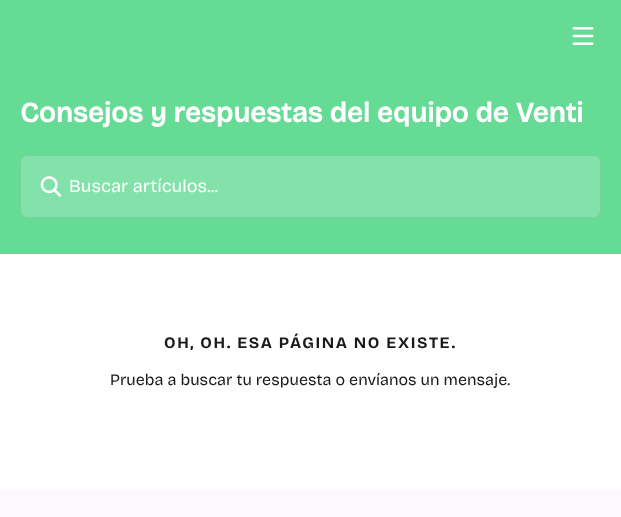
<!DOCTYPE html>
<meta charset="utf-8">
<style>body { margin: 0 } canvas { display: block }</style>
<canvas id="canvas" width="621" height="517"></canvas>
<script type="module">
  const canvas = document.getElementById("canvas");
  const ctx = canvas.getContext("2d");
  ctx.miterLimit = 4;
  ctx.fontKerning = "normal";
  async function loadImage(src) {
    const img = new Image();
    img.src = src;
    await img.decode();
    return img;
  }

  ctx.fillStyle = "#ffffff";
  ctx.fillRect(0, 0, 621, 517);
  ctx.fillStyle = "#65db95";
  ctx.fillRect(0, 0, 621, 254);
  ctx.drawImage(await loadImage("img1.png"), 572, 27, 22, 18);
  ctx.font = "bold 28px Bricolage Grotesque";
  ctx.fillStyle = "#ffffff";
  ctx.fillText("Consejos y respuestas del equipo de Venti", 20, 122);
  ctx.fillStyle = "rgba(255, 255, 255, 0.2)";
  ctx.beginPath();
  ctx.roundRect(20, 155, 581, 63, 8);
  ctx.fill();
  ctx.beginPath();
  ctx.roundRect(20.5, 155.5, 580, 62, 7.5);
  ctx.strokeStyle = "rgba(0, 0, 0, 0.08)";
  ctx.stroke();
  ctx.drawImage(await loadImage("img2.png"), 40, 176, 22, 21);
  ctx.font = "18px Bricolage Grotesque";
  ctx.fillStyle = "#ffffff";
  ctx.fillText("Buscar artículos...", 69, 192);
  ctx.letterSpacing = "1.6px";
  ctx.font = "bold 16px 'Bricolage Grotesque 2'";
  ctx.fillStyle = "#1a1a1a";
  ctx.fillText("OH, OH. ESA PÁGINA NO EXISTE.", 164, 348);
  ctx.letterSpacing = "0px";
  ctx.font = "16px Bricolage Grotesque";
  ctx.fillText("Prueba a buscar tu respuesta o envíanos un mensaje.", 110, 385);
  ctx.fillStyle = "#fdfaff";
  ctx.fillRect(0, 489, 621, 28);
</script>
